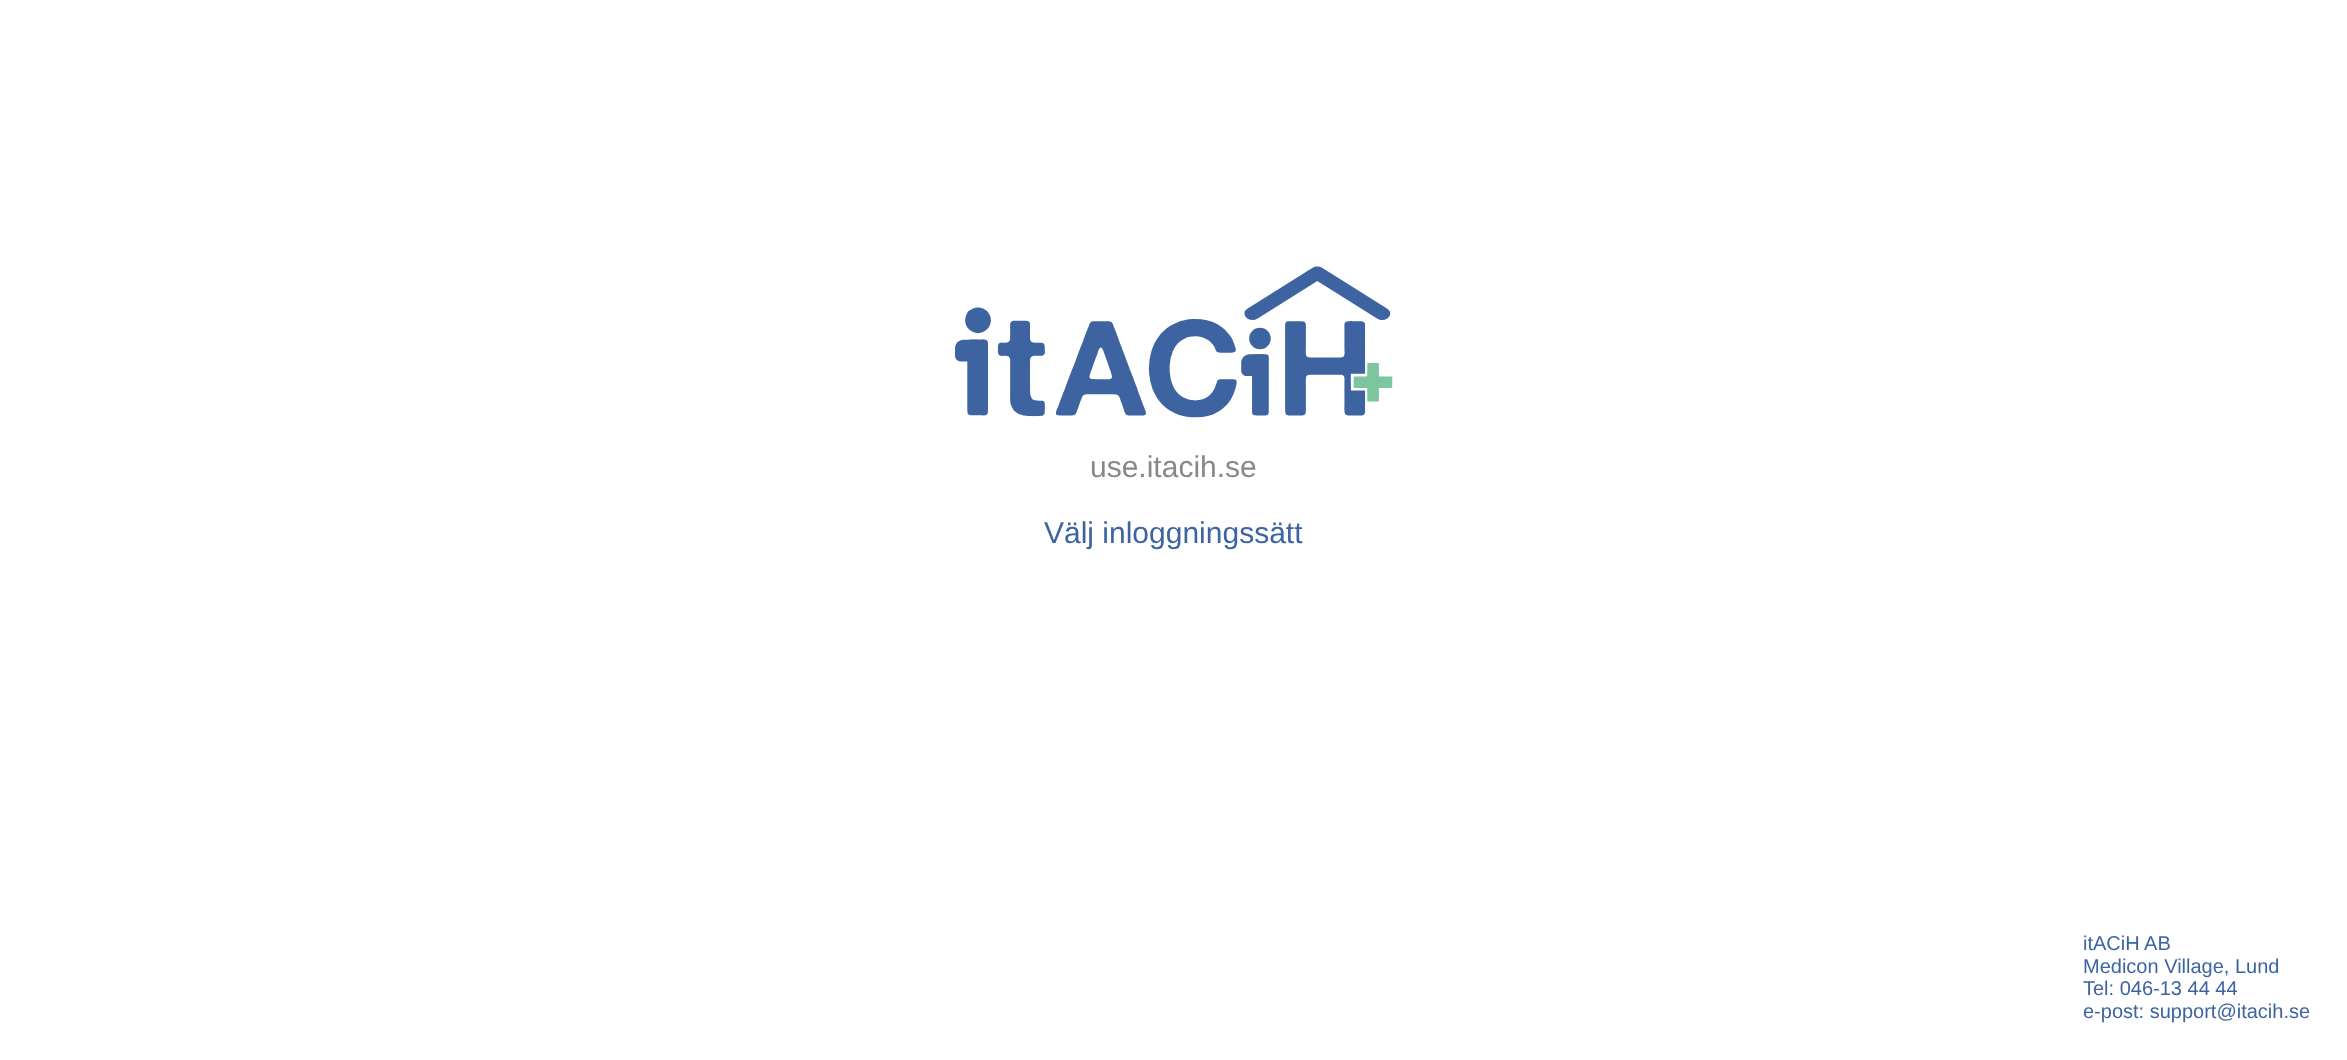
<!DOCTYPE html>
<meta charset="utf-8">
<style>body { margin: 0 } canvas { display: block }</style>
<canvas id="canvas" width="2347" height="1060"></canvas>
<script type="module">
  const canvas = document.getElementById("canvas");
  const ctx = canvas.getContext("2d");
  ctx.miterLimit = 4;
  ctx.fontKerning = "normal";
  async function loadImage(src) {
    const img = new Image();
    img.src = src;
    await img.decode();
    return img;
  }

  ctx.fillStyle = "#ffffff";
  ctx.fillRect(0, 0, 2347, 1060);
  ctx.drawImage(await loadImage("img1.png"), 955, 266, 438, 152);
  ctx.font = "30px Liberation Sans";
  ctx.fillStyle = "#888888";
  ctx.fillText("use.itacih.se", 1090, 477);
  ctx.fillStyle = "#3d64a1";
  ctx.fillText("Välj inloggningssätt", 1044, 543);
  ctx.font = "20px Liberation Sans";
  ctx.fillText("itACiH AB", 2083, 950);
  ctx.fillText("Medicon Village, Lund", 2083, 973);
  ctx.fillText("Tel: 046-13 44 44", 2083, 995);
  ctx.fillText("e-post: support@itacih.se", 2083, 1018);
</script>
